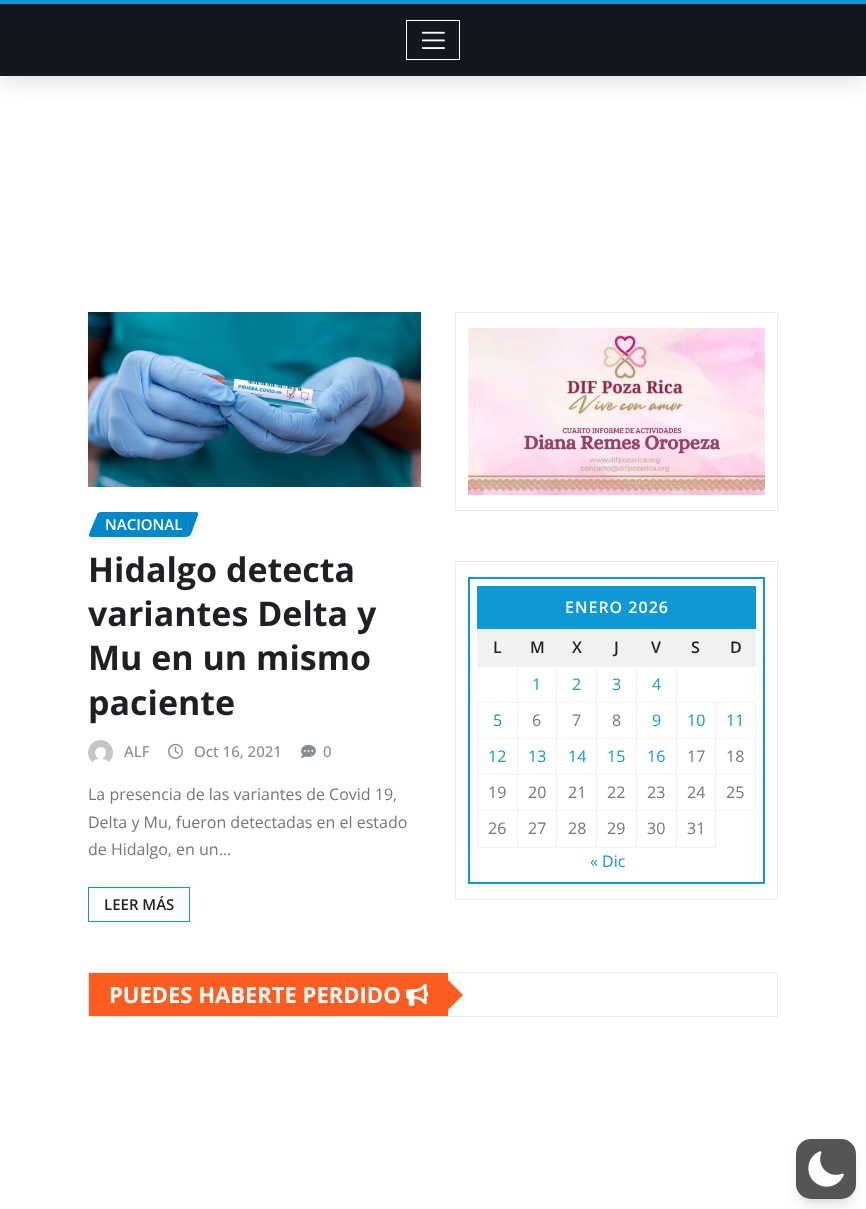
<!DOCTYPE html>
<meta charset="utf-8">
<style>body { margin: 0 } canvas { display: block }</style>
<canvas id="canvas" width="866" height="1209"></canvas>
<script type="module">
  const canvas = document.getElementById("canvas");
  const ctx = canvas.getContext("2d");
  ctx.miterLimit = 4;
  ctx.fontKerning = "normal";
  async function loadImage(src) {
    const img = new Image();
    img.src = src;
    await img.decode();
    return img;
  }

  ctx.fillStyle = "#ffffff";
  ctx.fillRect(0, 0, 866, 1209);
  ctx.fillStyle = "rgba(0, 0, 0, 0.1)";
  ctx.filter = "blur(10px)";
  ctx.beginPath();
  ctx.rect(0, 8, 866, 76);
  ctx.fill();
  ctx.filter = "none";
  ctx.fillStyle = "#13171e";
  ctx.fillRect(0, 4, 866, 72);
  ctx.fillStyle = "#0e98d6";
  ctx.fillRect(0, 0, 866, 4);
  ctx.strokeStyle = "#ffffff";
  ctx.strokeRect(406.5, 20.5, 53, 39);
  ctx.drawImage(await loadImage("img1.png"), 421, 31, 24, 18);
  ctx.drawImage(await loadImage("img2.png"), 88, 312, 333, 175);
  ctx.fillStyle = "#0088cb";
  ctx.beginPath();
  ctx.moveTo(101, 512);
  ctx.lineTo(196, 512);
  ctx.bezierCurveTo(198, 512, 199, 513, 198, 515);
  ctx.lineTo(191, 534);
  ctx.bezierCurveTo(190, 536, 188, 537, 186, 537);
  ctx.lineTo(91, 537);
  ctx.bezierCurveTo(89, 537, 89, 536, 89, 534);
  ctx.lineTo(97, 515);
  ctx.bezierCurveTo(97, 513, 99, 512, 101, 512);
  ctx.closePath();
  ctx.fill();
  ctx.font = "600 15px Open Sans";
  ctx.fillStyle = "#ffffff";
  ctx.fillText("NACIONAL", 105, 530);
  ctx.font = "bold 34px Open Sans";
  ctx.fillStyle = "#1f2024";
  ctx.fillText("Hidalgo detecta", 88, 582);
  ctx.fillText("variantes Delta y", 88, 626);
  ctx.fillText("Mu en un mismo", 88, 670);
  ctx.fillText("paciente", 88, 715);
  ctx.drawImage(await loadImage("img3.png"), 88, 740, 25, 22);
  ctx.font = "500 15px Open Sans";
  ctx.fillStyle = "#878e94";
  ctx.fillText("ALF", 124, 757);
  ctx.drawImage(await loadImage("img4.png"), 168, 743, 15, 16);
  ctx.fillText("Oct 16, 2021", 194, 757);
  ctx.drawImage(await loadImage("img5.png"), 301, 744, 15, 14);
  ctx.fillText("0", 323, 757);
  ctx.font = "16px Open Sans";
  ctx.fillStyle = "#767676";
  ctx.fillText("La presencia de las variantes de Covid 19,", 88, 800);
  ctx.fillText("Delta y Mu, fueron detectadas en el estado", 88, 828);
  ctx.fillText("de Hidalgo, en un…", 88, 855);
  ctx.strokeStyle = "#0e98d6";
  ctx.strokeRect(88.5, 887.5, 101, 34);
  ctx.font = "600 15px Open Sans";
  ctx.fillStyle = "#1f2024";
  ctx.fillText("LEER MÁS", 104, 910);
  ctx.strokeStyle = "#ebebeb";
  ctx.strokeRect(455.5, 312.5, 322, 198);
  ctx.drawImage(await loadImage("img6.png"), 468, 328, 297, 167);
  ctx.strokeRect(455.5, 561.5, 322, 338);
  ctx.strokeStyle = "#0e98d6";
  ctx.lineWidth = 2;
  ctx.strokeRect(469, 578, 295, 305);
  ctx.fillStyle = "#0e98d6";
  ctx.fillRect(477, 586, 279, 43);
  ctx.letterSpacing = "1px";
  ctx.font = "600 16px Open Sans";
  ctx.fillStyle = "#ffffff";
  ctx.fillText("ENERO 2026", 565, 613);
  ctx.fillStyle = "#f1f1f1";
  ctx.fillRect(478, 630, 277, 36);
  ctx.fillRect(636, 666, 41, 1);
  ctx.fillRect(715, 702, 41, 1);
  ctx.fillRect(715, 738, 41, 1);
  ctx.fillRect(715, 774, 41, 1);
  ctx.fillRect(755, 774, 1, 37);
  ctx.fillRect(676, 810, 40, 1);
  ctx.fillRect(715, 810, 1, 38);
  ctx.fillRect(715, 810, 41, 1);
  ctx.fillRect(715, 774, 1, 37);
  ctx.fillRect(676, 774, 40, 1);
  ctx.fillRect(715, 738, 1, 37);
  ctx.fillRect(676, 738, 40, 1);
  ctx.fillRect(715, 702, 1, 37);
  ctx.fillRect(676, 702, 40, 1);
  ctx.fillRect(676, 847, 40, 1);
  ctx.fillRect(676, 810, 1, 38);
  ctx.fillRect(636, 810, 41, 1);
  ctx.fillRect(676, 774, 1, 37);
  ctx.fillRect(636, 774, 41, 1);
  ctx.fillRect(676, 738, 1, 37);
  ctx.fillRect(636, 738, 41, 1);
  ctx.fillRect(676, 702, 1, 37);
  ctx.fillRect(636, 702, 41, 1);
  ctx.fillRect(636, 847, 41, 1);
  ctx.fillRect(636, 810, 1, 38);
  ctx.fillRect(596, 810, 41, 1);
  ctx.fillRect(636, 774, 1, 37);
  ctx.fillRect(596, 774, 41, 1);
  ctx.fillRect(636, 738, 1, 37);
  ctx.fillRect(596, 738, 41, 1);
  ctx.fillRect(636, 702, 1, 37);
  ctx.fillRect(596, 702, 41, 1);
  ctx.fillRect(636, 666, 1, 37);
  ctx.fillRect(596, 666, 41, 1);
  ctx.fillRect(596, 847, 41, 1);
  ctx.fillRect(596, 810, 1, 38);
  ctx.fillRect(556, 810, 41, 1);
  ctx.fillRect(596, 774, 1, 37);
  ctx.fillRect(556, 774, 41, 1);
  ctx.fillRect(596, 738, 1, 37);
  ctx.fillRect(556, 738, 41, 1);
  ctx.fillRect(596, 702, 1, 37);
  ctx.fillRect(556, 702, 41, 1);
  ctx.fillRect(596, 666, 1, 37);
  ctx.fillRect(556, 666, 41, 1);
  ctx.fillRect(556, 847, 41, 1);
  ctx.fillRect(556, 810, 1, 38);
  ctx.fillRect(517, 810, 40, 1);
  ctx.fillRect(556, 774, 1, 37);
  ctx.fillRect(517, 774, 40, 1);
  ctx.fillRect(556, 738, 1, 37);
  ctx.fillRect(517, 738, 40, 1);
  ctx.fillRect(556, 702, 1, 37);
  ctx.fillRect(517, 702, 40, 1);
  ctx.fillRect(556, 666, 1, 37);
  ctx.fillRect(517, 666, 40, 1);
  ctx.fillRect(517, 847, 40, 1);
  ctx.fillRect(517, 810, 1, 38);
  ctx.fillRect(477, 810, 41, 1);
  ctx.fillRect(517, 774, 1, 37);
  ctx.fillRect(477, 774, 41, 1);
  ctx.fillRect(517, 738, 1, 37);
  ctx.fillRect(477, 738, 41, 1);
  ctx.fillRect(517, 702, 1, 37);
  ctx.fillRect(477, 702, 41, 1);
  ctx.fillRect(517, 666, 1, 37);
  ctx.fillRect(477, 666, 41, 1);
  ctx.fillRect(477, 629, 279, 1);
  ctx.fillRect(477, 629, 1, 38);
  ctx.letterSpacing = "0px";
  ctx.fillStyle = "#1f2024";
  ctx.fillText("L", 493, 653);
  ctx.fillText("M", 530, 653);
  ctx.fillText("X", 572, 653);
  ctx.fillText("J", 614, 653);
  ctx.fillText("V", 651, 653);
  ctx.fillText("S", 691, 653);
  ctx.fillStyle = "#f1f1f1";
  ctx.fillRect(755, 629, 1, 38);
  ctx.fillRect(676, 666, 1, 37);
  ctx.fillRect(676, 666, 80, 1);
  ctx.fillStyle = "#1f2024";
  ctx.fillText("D", 730, 653);
  ctx.font = "16px Open Sans";
  ctx.fillStyle = "#0e98d6";
  ctx.fillText("1", 532, 690);
  ctx.fillText("2", 572, 690);
  ctx.fillText("3", 612, 690);
  ctx.fillText("4", 652, 690);
  ctx.fillStyle = "#f1f1f1";
  ctx.fillRect(477, 847, 41, 1);
  ctx.fillRect(477, 810, 1, 38);
  ctx.fillRect(477, 774, 1, 37);
  ctx.fillRect(477, 738, 1, 37);
  ctx.fillRect(477, 702, 1, 37);
  ctx.fillStyle = "#0e98d6";
  ctx.fillText("5", 493, 726);
  ctx.fillStyle = "#767676";
  ctx.fillText("6", 532, 726);
  ctx.fillText("7", 572, 726);
  ctx.fillText("8", 612, 726);
  ctx.fillStyle = "#0e98d6";
  ctx.fillText("9", 652, 726);
  ctx.fillText("10", 687, 726);
  ctx.fillStyle = "#f1f1f1";
  ctx.fillRect(755, 738, 1, 37);
  ctx.fillRect(755, 702, 1, 37);
  ctx.fillStyle = "#0e98d6";
  ctx.fillText("11", 726, 726);
  ctx.fillText("12", 488, 762);
  ctx.fillText("13", 528, 762);
  ctx.fillText("14", 568, 762);
  ctx.fillText("15", 607, 762);
  ctx.fillText("16", 647, 762);
  ctx.fillStyle = "#767676";
  ctx.fillText("17", 687, 762);
  ctx.fillText("18", 726, 762);
  ctx.fillText("19", 488, 798);
  ctx.fillText("20", 528, 798);
  ctx.fillText("21", 568, 798);
  ctx.fillText("22", 607, 798);
  ctx.fillText("23", 647, 798);
  ctx.fillText("24", 687, 798);
  ctx.fillText("25", 726, 798);
  ctx.fillText("26", 488, 834);
  ctx.fillText("27", 528, 834);
  ctx.fillText("28", 568, 834);
  ctx.fillText("29", 607, 834);
  ctx.fillText("30", 647, 834);
  ctx.fillText("31", 687, 834);
  ctx.fillStyle = "#0e98d6";
  ctx.fillText("« Dic", 590, 867);
  ctx.strokeStyle = "#ebebeb";
  ctx.lineWidth = 1;
  ctx.strokeRect(88.5, 972.5, 689, 44);
  ctx.fillStyle = "#ff5d20";
  ctx.fillRect(89, 973, 359, 43);
  ctx.font = "bold 22px Open Sans";
  ctx.fillStyle = "#ffffff";
  ctx.fillText("PUEDES HABERTE PERDIDO", 109, 1003);
  ctx.drawImage(await loadImage("img7.png"), 406, 983, 22, 23);
  ctx.fillStyle = "#ff5d20";
  ctx.beginPath();
  ctx.moveTo(448, 1010);
  ctx.lineTo(448, 980);
  ctx.lineTo(463, 995);
  ctx.closePath();
  ctx.fill();
  ctx.fillStyle = "rgba(0, 0, 0, 0.1)";
  ctx.filter = "blur(3px)";
  ctx.beginPath();
  ctx.roundRect(800, 1147, 52, 52, 11);
  ctx.fill();
  ctx.filter = "none";
  ctx.filter = "blur(7.5px)";
  ctx.beginPath();
  ctx.roundRect(799, 1152, 54, 54, 12);
  ctx.fill();
  ctx.filter = "none";
  ctx.fillStyle = "#555555";
  ctx.beginPath();
  ctx.roundRect(796, 1139, 60, 60, 15);
  ctx.fill();
  ctx.drawImage(await loadImage("img8.png"), 808, 1151, 36, 36);
</script>
